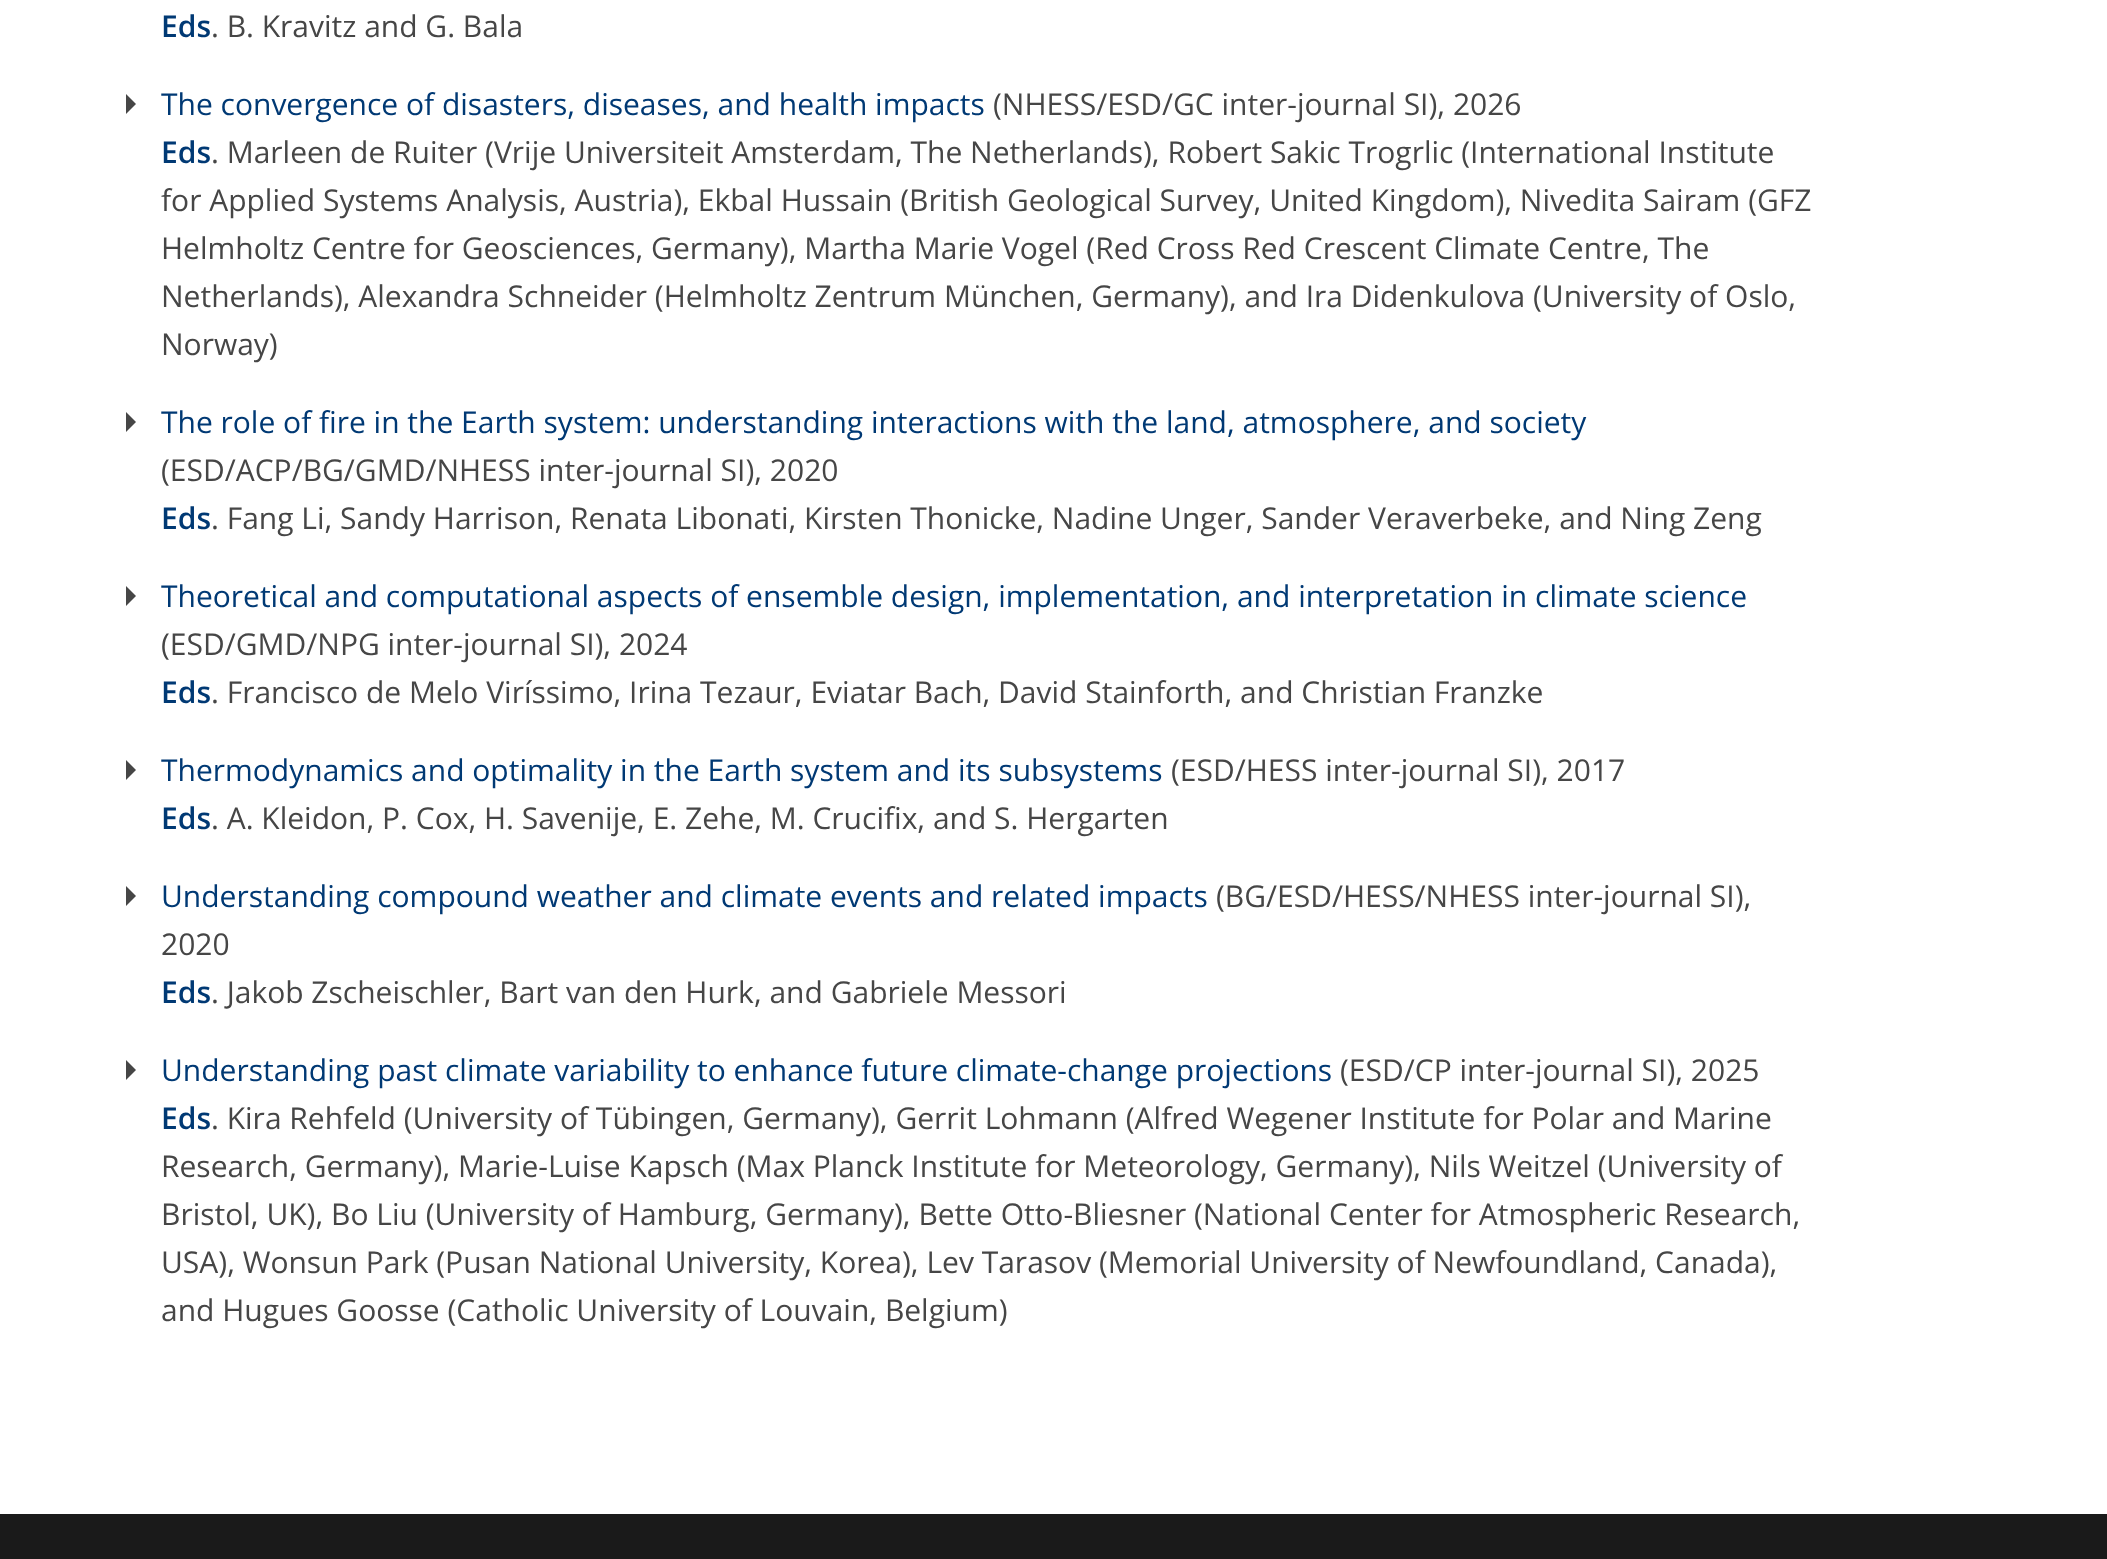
<!DOCTYPE html>
<meta charset="utf-8">
<style>body { margin: 0 } canvas { display: block }</style>
<canvas id="canvas" width="2107" height="1559"></canvas>
<script type="module">
  const canvas = document.getElementById("canvas");
  const ctx = canvas.getContext("2d");
  ctx.miterLimit = 4;
  ctx.fontKerning = "normal";

  ctx.fillStyle = "#ffffff";
  ctx.fillRect(0, 0, 2107, 1559);
  ctx.font = "600 30px Open Sans";
  ctx.fillStyle = "#003974";
  ctx.fillText("Eds", 161, 37);
  ctx.font = "30px Open Sans";
  ctx.fillStyle = "#464646";
  ctx.fillText(". B. Kravitz and G. Bala", 211, 37);
  ctx.beginPath();
  ctx.moveTo(126, 114);
  ctx.lineTo(126, 94);
  ctx.lineTo(136, 104);
  ctx.closePath();
  ctx.fill();
  ctx.fillStyle = "#003974";
  ctx.fillText("The convergence of disasters, diseases, and health impacts", 161, 115);
  ctx.fillStyle = "#464646";
  ctx.fillText("(NHESS/ESD/GC inter-journal SI), 2026", 993, 115);
  ctx.font = "600 30px Open Sans";
  ctx.fillStyle = "#003974";
  ctx.fillText("Eds", 161, 163);
  ctx.font = "30px Open Sans";
  ctx.fillStyle = "#464646";
  ctx.fillText(". Marleen de Ruiter (Vrije Universiteit Amsterdam, The Netherlands), Robert Sakic Trogrlic (International Institute", 211, 163);
  ctx.fillText("for Applied Systems Analysis, Austria), Ekbal Hussain (British Geological Survey, United Kingdom), Nivedita Sairam (GFZ", 161, 211);
  ctx.fillText("Helmholtz Centre for Geosciences, Germany), Martha Marie Vogel (Red Cross Red Crescent Climate Centre, The", 161, 259);
  ctx.fillText("Netherlands), Alexandra Schneider (Helmholtz Zentrum München, Germany), and Ira Didenkulova (University of Oslo,", 161, 307);
  ctx.fillText("Norway)", 161, 355);
  ctx.beginPath();
  ctx.moveTo(126, 432);
  ctx.lineTo(126, 412);
  ctx.lineTo(136, 422);
  ctx.closePath();
  ctx.fill();
  ctx.fillStyle = "#003974";
  ctx.fillText("The role of fire in the Earth system: understanding interactions with the land, atmosphere, and society", 161, 433);
  ctx.fillStyle = "#464646";
  ctx.fillText("(ESD/ACP/BG/GMD/NHESS inter-journal SI), 2020", 161, 481);
  ctx.font = "600 30px Open Sans";
  ctx.fillStyle = "#003974";
  ctx.fillText("Eds", 161, 529);
  ctx.font = "30px Open Sans";
  ctx.fillStyle = "#464646";
  ctx.fillText(". Fang Li, Sandy Harrison, Renata Libonati, Kirsten Thonicke, Nadine Unger, Sander Veraverbeke, and Ning Zeng", 211, 529);
  ctx.beginPath();
  ctx.moveTo(126, 606);
  ctx.lineTo(126, 586);
  ctx.lineTo(136, 596);
  ctx.closePath();
  ctx.fill();
  ctx.fillStyle = "#003974";
  ctx.fillText("Theoretical and computational aspects of ensemble design, implementation, and interpretation in climate science", 161, 607);
  ctx.fillStyle = "#464646";
  ctx.fillText("(ESD/GMD/NPG inter-journal SI), 2024", 161, 655);
  ctx.font = "600 30px Open Sans";
  ctx.fillStyle = "#003974";
  ctx.fillText("Eds", 161, 703);
  ctx.font = "30px Open Sans";
  ctx.fillStyle = "#464646";
  ctx.fillText(". Francisco de Melo Viríssimo, Irina Tezaur, Eviatar Bach, David Stainforth, and Christian Franzke", 211, 703);
  ctx.beginPath();
  ctx.moveTo(126, 780);
  ctx.lineTo(126, 760);
  ctx.lineTo(136, 770);
  ctx.closePath();
  ctx.fill();
  ctx.fillStyle = "#003974";
  ctx.fillText("Thermodynamics and optimality in the Earth system and its subsystems", 161, 781);
  ctx.fillStyle = "#464646";
  ctx.fillText("(ESD/HESS inter-journal SI), 2017", 1171, 781);
  ctx.font = "600 30px Open Sans";
  ctx.fillStyle = "#003974";
  ctx.fillText("Eds", 161, 829);
  ctx.font = "30px Open Sans";
  ctx.fillStyle = "#464646";
  ctx.fillText(". A. Kleidon, P. Cox, H. Savenije, E. Zehe, M. Crucifix, and S. Hergarten", 211, 829);
  ctx.beginPath();
  ctx.moveTo(126, 906);
  ctx.lineTo(126, 886);
  ctx.lineTo(136, 896);
  ctx.closePath();
  ctx.fill();
  ctx.fillStyle = "#003974";
  ctx.fillText("Understanding compound weather and climate events and related impacts", 161, 907);
  ctx.fillStyle = "#464646";
  ctx.fillText("(BG/ESD/HESS/NHESS inter-journal SI),", 1216, 907);
  ctx.fillText("2020", 161, 955);
  ctx.font = "600 30px Open Sans";
  ctx.fillStyle = "#003974";
  ctx.fillText("Eds", 161, 1003);
  ctx.font = "30px Open Sans";
  ctx.fillStyle = "#464646";
  ctx.fillText(". Jakob Zscheischler, Bart van den Hurk, and Gabriele Messori", 211, 1003);
  ctx.beginPath();
  ctx.moveTo(126, 1080);
  ctx.lineTo(126, 1060);
  ctx.lineTo(136, 1070);
  ctx.closePath();
  ctx.fill();
  ctx.fillStyle = "#003974";
  ctx.fillText("Understanding past climate variability to enhance future climate-change projections", 161, 1081);
  ctx.fillStyle = "#464646";
  ctx.fillText("(ESD/CP inter-journal SI), 2025", 1340, 1081);
  ctx.font = "600 30px Open Sans";
  ctx.fillStyle = "#003974";
  ctx.fillText("Eds", 161, 1129);
  ctx.font = "30px Open Sans";
  ctx.fillStyle = "#464646";
  ctx.fillText(". Kira Rehfeld (University of Tübingen, Germany), Gerrit Lohmann (Alfred Wegener Institute for Polar and Marine", 211, 1129);
  ctx.fillText("Research, Germany), Marie-Luise Kapsch (Max Planck Institute for Meteorology, Germany), Nils Weitzel (University of", 161, 1177);
  ctx.fillText("Bristol, UK), Bo Liu (University of Hamburg, Germany), Bette Otto-Bliesner (National Center for Atmospheric Research,", 161, 1225);
  ctx.fillText("USA), Wonsun Park (Pusan National University, Korea), Lev Tarasov (Memorial University of Newfoundland, Canada),", 161, 1273);
  ctx.fillText("and Hugues Goosse (Catholic University of Louvain, Belgium)", 161, 1321);
  ctx.fillStyle = "#1a1a1a";
  ctx.fillRect(0, 1514, 2107, 45);
</script>
